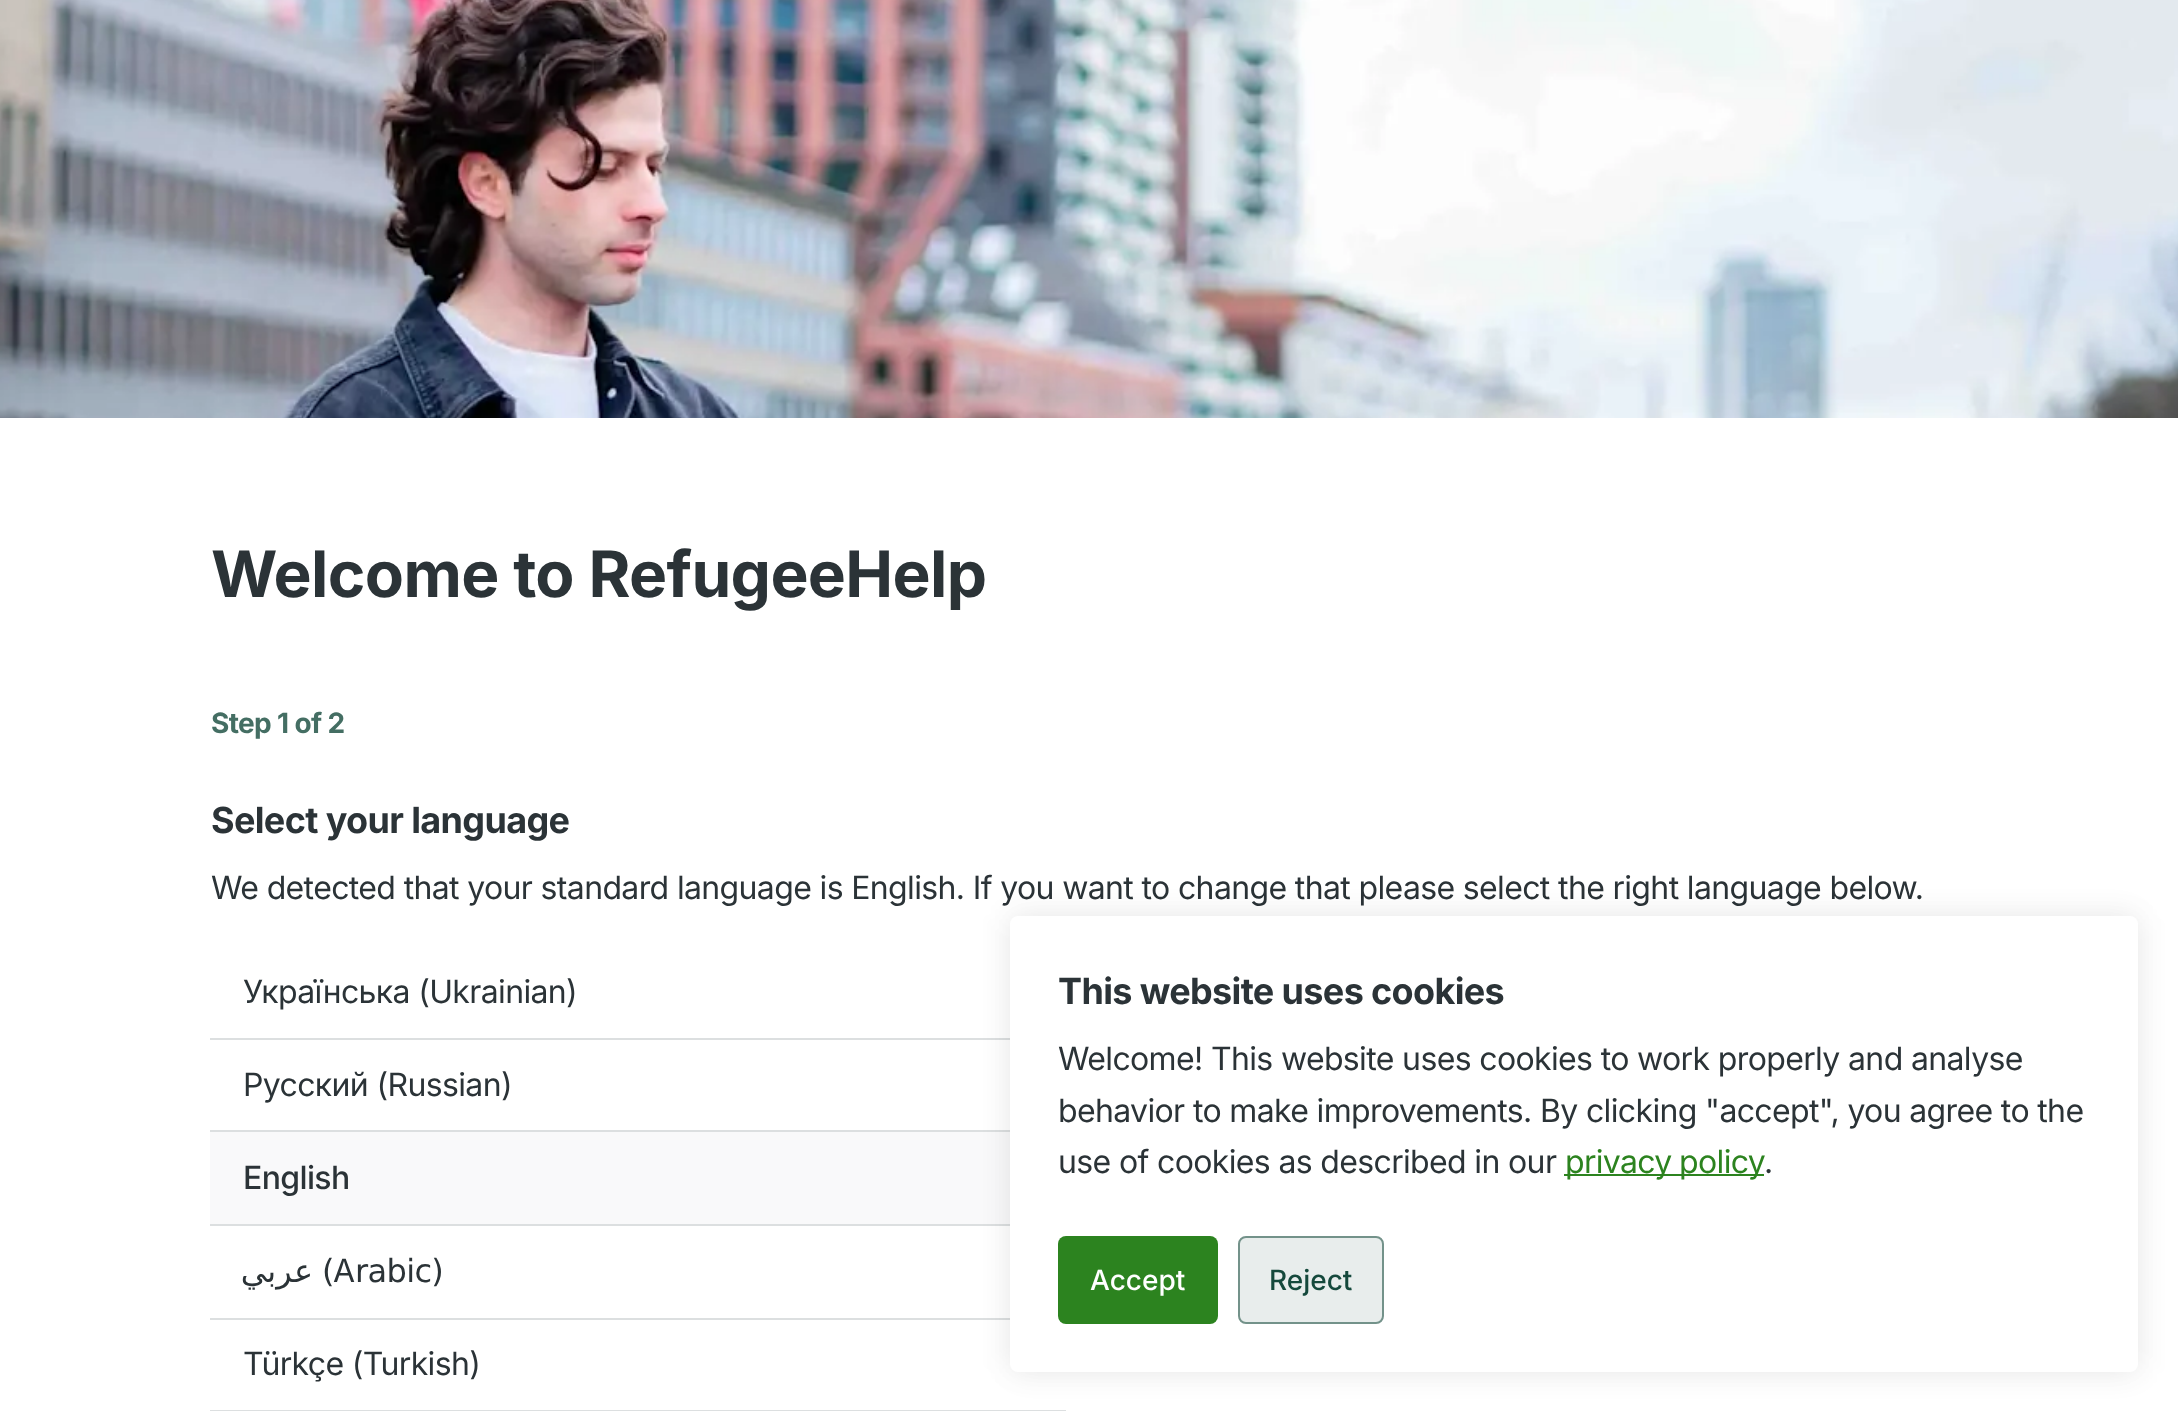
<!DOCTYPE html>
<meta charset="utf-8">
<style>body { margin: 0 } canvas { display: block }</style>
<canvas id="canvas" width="2178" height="1411"></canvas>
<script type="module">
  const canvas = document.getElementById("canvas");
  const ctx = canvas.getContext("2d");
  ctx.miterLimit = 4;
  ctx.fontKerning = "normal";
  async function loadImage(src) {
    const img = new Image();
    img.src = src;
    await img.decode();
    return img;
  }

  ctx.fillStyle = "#ffffff";
  ctx.fillRect(0, 0, 2178, 1411);
  ctx.drawImage(await loadImage("img1.png"), 0, 0, 2178, 418);
  ctx.letterSpacing = "-0.64px";
  ctx.font = "bold 64px Inter";
  ctx.fillStyle = "#2b3337";
  ctx.fillText("Welcome to RefugeeHelp", 211, 597);
  ctx.font = "bold 28px Inter";
  ctx.fillStyle = "#446e63";
  ctx.fillText("Step 1 of 2", 211, 733);
  ctx.font = "bold 36px Inter";
  ctx.fillStyle = "#2b3337";
  ctx.fillText("Select your language", 211, 833);
  ctx.font = "32px Inter";
  ctx.fillText("We detected that your standard language is English. If you want to change that please select the right language below.", 211, 899);
  ctx.fillStyle = "#dcdfe0";
  ctx.fillRect(210, 1038, 800, 2);
  ctx.fillStyle = "#2b3337";
  ctx.fillText("Українська (Ukrainian)", 243, 1003);
  ctx.fillStyle = "#dcdfe0";
  ctx.fillRect(210, 1130, 800, 2);
  ctx.fillStyle = "#2b3337";
  ctx.fillText("Pусский (Russian)", 243, 1096);
  ctx.fillStyle = "#dcdfe0";
  ctx.fillRect(210, 1224, 800, 2);
  ctx.fillStyle = "#f9f9fa";
  ctx.fillRect(210, 1132, 800, 92);
  ctx.font = "500 32px Inter";
  ctx.fillStyle = "#2b3337";
  ctx.fillText("English", 243, 1189);
  ctx.fillStyle = "#dcdfe0";
  ctx.fillRect(210, 1318, 800, 2);
  ctx.direction = "rtl";
  ctx.font = "32px DejaVu Sans";
  ctx.fillStyle = "#2b3337";
  ctx.fillText("عربي", 313, 1282);
  ctx.direction = "ltr";
  ctx.fillText("(", 322, 1282);
  ctx.font = "32px Inter";
  ctx.fillText("A", 333, 1282);
  ctx.font = "32px DejaVu Sans";
  ctx.fillText("rabic)", 355, 1282);
  ctx.fillStyle = "#dcdfe0";
  ctx.fillRect(210, 1410, 856, 1);
  ctx.font = "32px Inter";
  ctx.fillStyle = "#2b3337";
  ctx.fillText("Türkçe (Turkish)", 243, 1375);
  ctx.fillStyle = "rgba(0, 0, 0, 0.05)";
  ctx.filter = "blur(15px)";
  ctx.beginPath();
  ctx.roundRect(1008, 914, 1128, 456, 8);
  ctx.fill();
  ctx.filter = "none";
  ctx.filter = "blur(15px)";
  ctx.beginPath();
  ctx.roundRect(1012, 918, 1128, 456, 8);
  ctx.fill();
  ctx.filter = "none";
  ctx.fillStyle = "#ffffff";
  ctx.beginPath();
  ctx.roundRect(1010, 916, 1128, 456, 8);
  ctx.fill();
  ctx.font = "bold 36px Inter";
  ctx.fillStyle = "#2b3337";
  ctx.fillText("This website uses cookies", 1058, 1004);
  ctx.font = "32px Inter";
  ctx.fillText("Welcome! This website uses cookies to work properly and analyse", 1058, 1070);
  ctx.fillText("behavior to make improvements. By clicking \"accept\", you agree to the", 1058, 1122);
  ctx.fillText("use of cookies as described in our", 1058, 1173);
  ctx.fillStyle = "#2c831f";
  ctx.fillRect(1564, 1174, 200, 2);
  ctx.wordSpacing = "-1px";
  ctx.fillText("privacy policy", 1565, 1173);
  ctx.wordSpacing = "0px";
  ctx.fillStyle = "#2b3337";
  ctx.fillText(".", 1764, 1173);
  ctx.fillStyle = "#2c831f";
  ctx.beginPath();
  ctx.roundRect(1058, 1236, 160, 88, 8);
  ctx.fill();
  ctx.letterSpacing = "0px";
  ctx.font = "500 28px Inter";
  ctx.fillStyle = "#ffffff";
  ctx.fillText("Accept", 1090, 1290);
  ctx.fillStyle = "#e8edec";
  ctx.beginPath();
  ctx.roundRect(1239, 1237, 144, 86, 7);
  ctx.fill();
  ctx.strokeStyle = "#73928a";
  ctx.lineWidth = 2;
  ctx.stroke();
  ctx.fillStyle = "#15493c";
  ctx.fillText("Reject", 1269, 1290);
</script>
